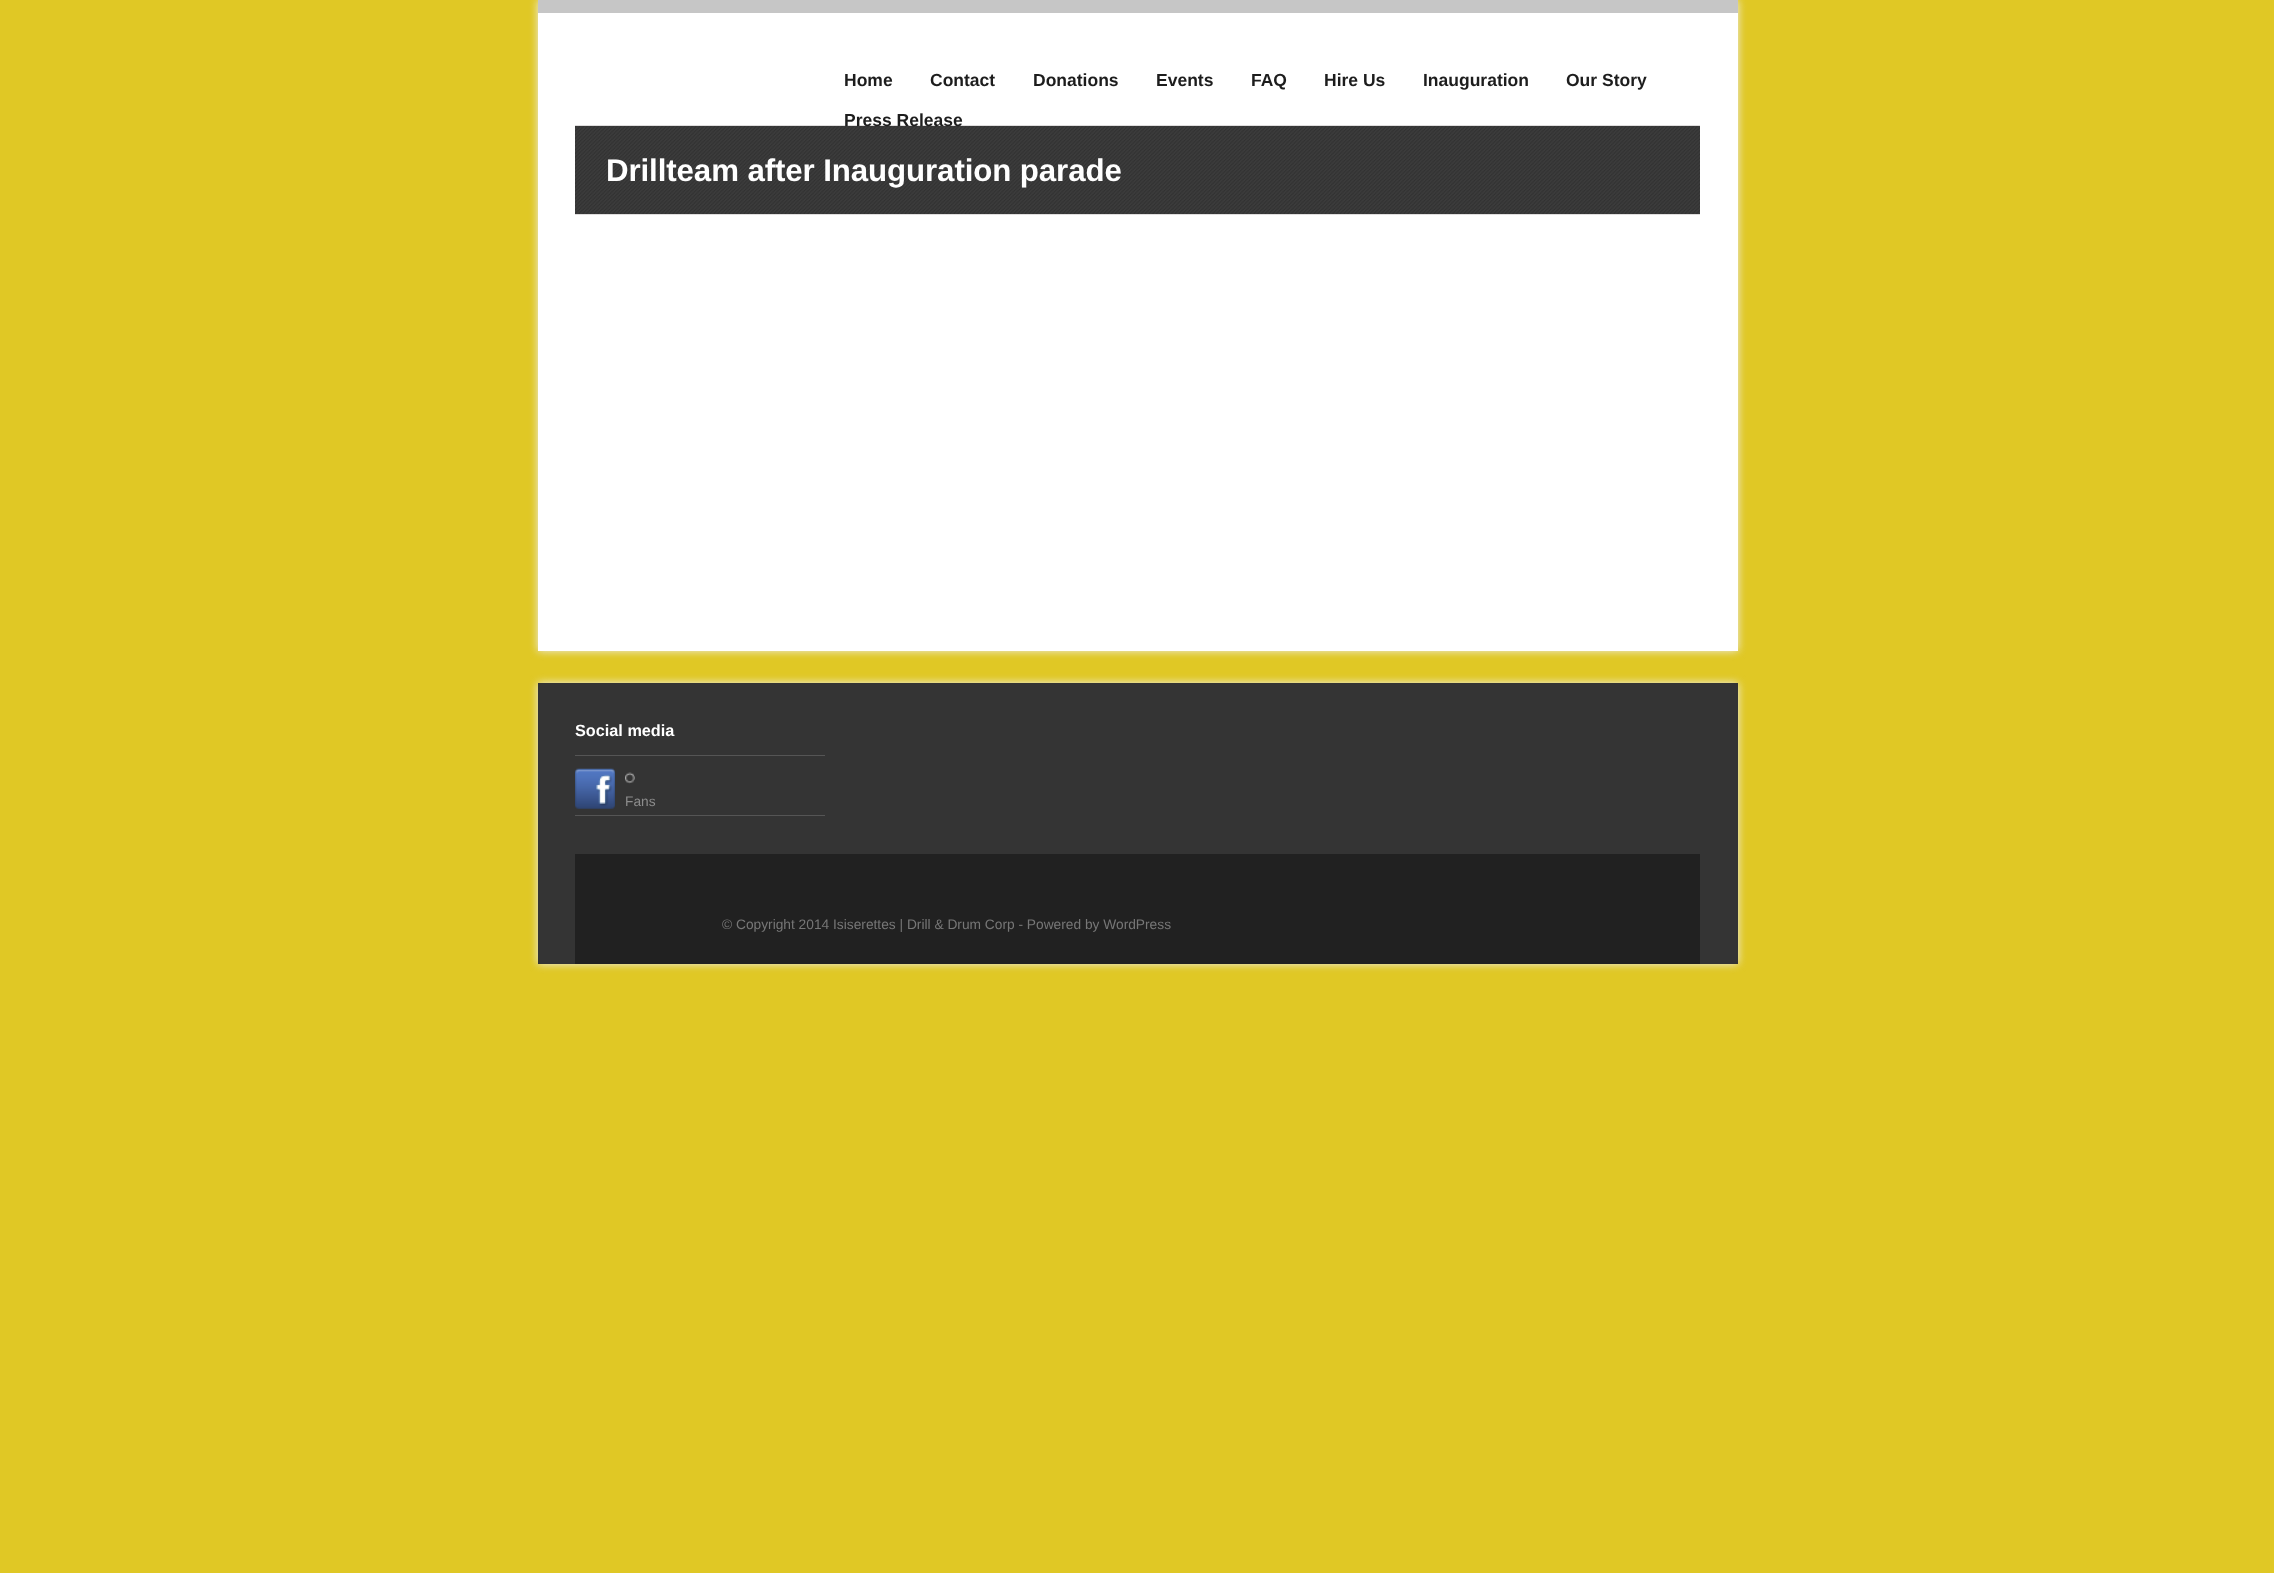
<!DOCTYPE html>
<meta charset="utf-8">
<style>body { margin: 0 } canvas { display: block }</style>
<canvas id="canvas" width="2274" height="1573"></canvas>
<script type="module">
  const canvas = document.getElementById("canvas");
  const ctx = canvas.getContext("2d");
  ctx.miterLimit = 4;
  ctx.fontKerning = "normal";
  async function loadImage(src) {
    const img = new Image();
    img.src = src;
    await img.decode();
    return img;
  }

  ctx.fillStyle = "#e0c825";
  ctx.fillRect(0, 0, 2274, 1573);
  ctx.fillStyle = "#eeeeee";
  ctx.filter = "blur(4px)";
  ctx.beginPath();
  ctx.rect(538, 0, 1200, 651);
  ctx.fill();
  ctx.filter = "none";
  ctx.fillStyle = "#ffffff";
  ctx.fillRect(538, 13, 1200, 638);
  ctx.fillStyle = "#c6c6c6";
  ctx.fillRect(538, 0, 1200, 13);
  ctx.font = "bold 17.5px Liberation Sans";
  ctx.fillStyle = "#1d1d1d";
  ctx.fillText("Home", 844, 86);
  ctx.fillText("Contact", 930, 86);
  ctx.fillText("Donations", 1033, 86);
  ctx.fillText("Events", 1156, 86);
  ctx.fillText("FAQ", 1251, 86);
  ctx.fillText("Hire Us", 1324, 86);
  ctx.fillText("Inauguration", 1423, 86);
  ctx.fillText("Our Story", 1566, 86);
  ctx.drawImage(await loadImage("img1.png"), 575, 126, 1125, 88);
  ctx.fillStyle = "#dfdddd";
  ctx.fillRect(575, 125, 1125, 1);
  ctx.fillStyle = "#1d1d1d";
  ctx.fillText("Press Release", 844, 126);
  ctx.fillStyle = "#dfdddd";
  ctx.fillRect(575, 214, 1125, 1);
  ctx.letterSpacing = "-0.1px";
  ctx.font = "bold 31.25px Liberation Sans";
  ctx.fillStyle = "#ffffff";
  ctx.fillText("Drillteam after Inauguration parade", 606, 181);
  ctx.fillStyle = "#eeeeee";
  ctx.filter = "blur(4px)";
  ctx.beginPath();
  ctx.rect(538, 683, 1200, 281);
  ctx.fill();
  ctx.filter = "none";
  ctx.fillStyle = "#343434";
  ctx.fillRect(538, 683, 1200, 281);
  ctx.fillStyle = "#555555";
  ctx.fillRect(575, 755, 250, 1);
  ctx.letterSpacing = "0px";
  ctx.font = "bold 16.25px Liberation Sans";
  ctx.fillStyle = "#ffffff";
  ctx.fillText("Social media", 575, 736);
  ctx.drawImage(await loadImage("img2.png"), 575, 768, 40, 41);
  ctx.fillStyle = "#555555";
  ctx.fillRect(575, 815, 250, 1);
  ctx.drawImage(await loadImage("img3.png"), 625, 772, 10, 12);
  ctx.font = "13.75px Liberation Sans";
  ctx.fillStyle = "#8c8c8c";
  ctx.fillText("Fans", 625, 806);
  ctx.fillStyle = "#212121";
  ctx.fillRect(575, 854, 1125, 110);
  ctx.fillStyle = "#777777";
  ctx.fillText("© Copyright 2014 Isiserettes | Drill & Drum Corp - Powered by WordPress", 722, 929);
</script>
